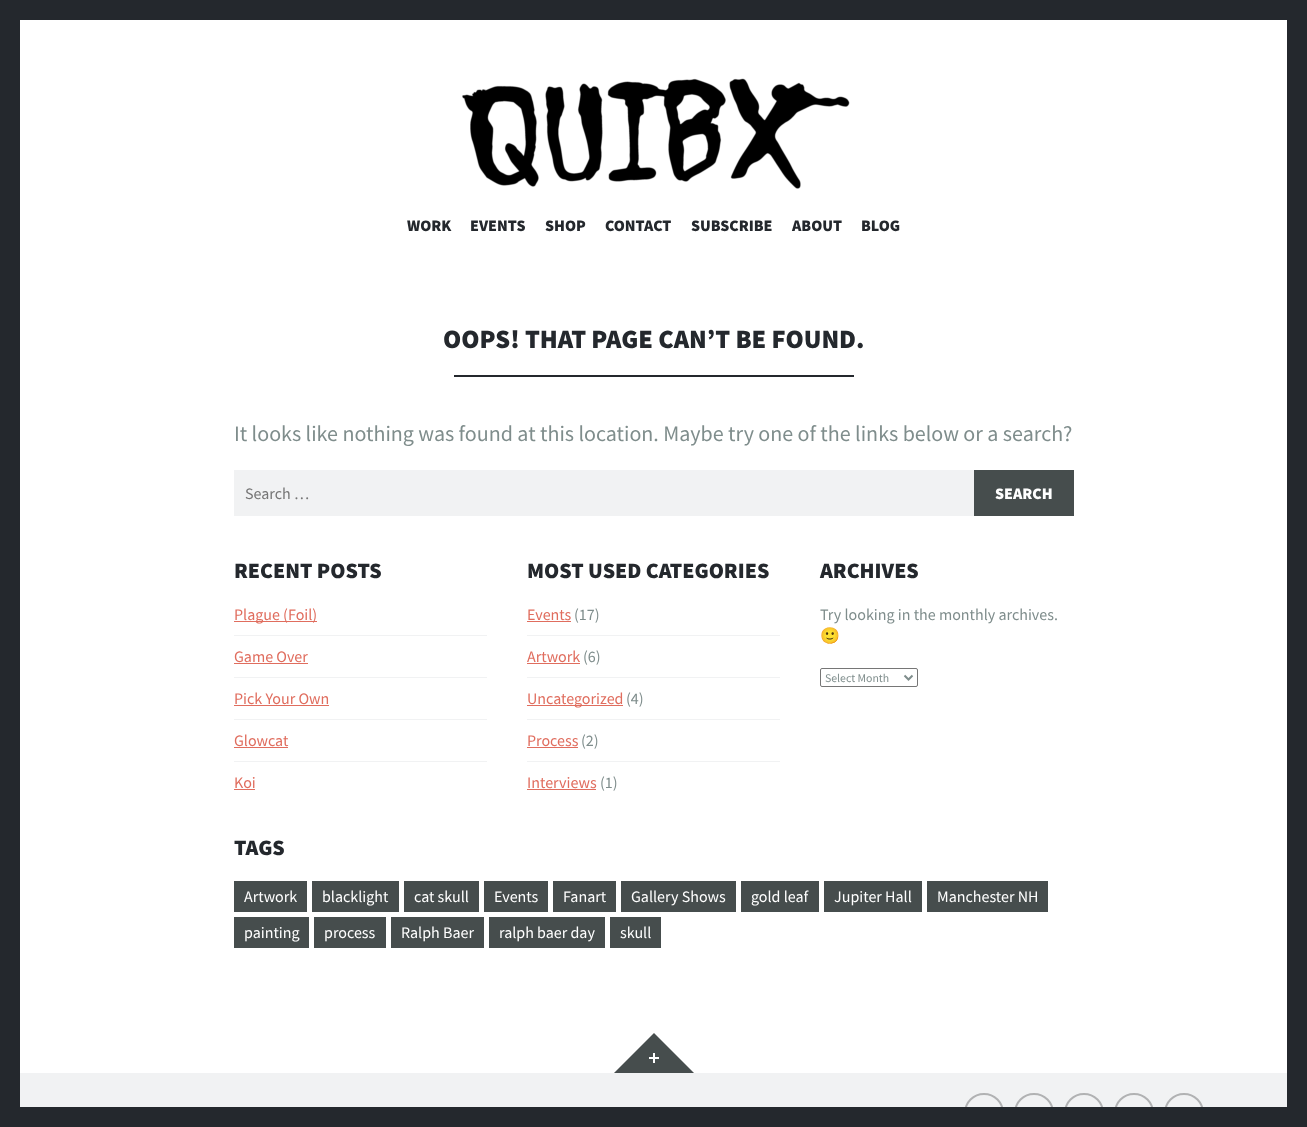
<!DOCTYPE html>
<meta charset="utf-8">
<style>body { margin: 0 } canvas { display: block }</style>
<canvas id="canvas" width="1307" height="1127"></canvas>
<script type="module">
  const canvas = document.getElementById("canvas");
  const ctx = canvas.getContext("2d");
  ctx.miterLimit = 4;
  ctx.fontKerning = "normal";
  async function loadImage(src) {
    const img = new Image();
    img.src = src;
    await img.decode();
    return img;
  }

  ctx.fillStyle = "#24282d";
  ctx.fillRect(0, 0, 1307, 1127);
  ctx.fillStyle = "#ffffff";
  ctx.fillRect(20, 20, 1267, 1053);
  ctx.drawImage(await loadImage("img1.png"), 462, 78, 388, 111);
  ctx.font = "900 16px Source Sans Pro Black";
  ctx.fillStyle = "#24282d";
  ctx.fillText("WORK", 407, 231);
  ctx.fillText("EVENTS", 470, 231);
  ctx.fillText("SHOP", 545, 231);
  ctx.fillText("CONTACT", 605, 231);
  ctx.fillText("SUBSCRIBE", 691, 231);
  ctx.fillText("ABOUT", 792, 231);
  ctx.fillText("BLOG", 861, 231);
  ctx.font = "900 26.4px Source Sans Pro Black";
  ctx.fillText("OOPS! THAT PAGE CAN’T BE FOUND.", 443, 348);
  ctx.fillRect(454, 375, 400, 2);
  ctx.font = "22px Source Sans Pro";
  ctx.fillStyle = "#7f8d8c";
  ctx.fillText("It looks like nothing was found at this location. Maybe try one of the links below or a search?", 234, 441);
  ctx.fillStyle = "#f1f2f3";
  ctx.fillRect(234, 470, 740, 46);
  ctx.font = "16px Source Sans Pro";
  ctx.fillStyle = "#757575";
  ctx.fillText("Search …", 245, 499);
  ctx.fillStyle = "#464d4d";
  ctx.fillRect(974, 470, 100, 46);
  ctx.font = "900 16px Source Sans Pro Black";
  ctx.fillStyle = "#ffffff";
  ctx.fillText("SEARCH", 995, 499);
  ctx.font = "900 22px Source Sans Pro Black";
  ctx.fillStyle = "#24282d";
  ctx.fillText("RECENT POSTS", 234, 578);
  ctx.fillStyle = "#f1f2f3";
  ctx.fillRect(234, 635, 253, 1);
  ctx.fillStyle = "#e06d5e";
  ctx.fillRect(234, 621, 83, 1);
  ctx.font = "16px Source Sans Pro";
  ctx.fillText("Plague (Foil)", 234, 620);
  ctx.fillStyle = "#f1f2f3";
  ctx.fillRect(234, 677, 253, 1);
  ctx.fillStyle = "#e06d5e";
  ctx.fillText("Game Over", 234, 662);
  ctx.fillRect(234, 663, 74, 1);
  ctx.fillStyle = "#f1f2f3";
  ctx.fillRect(234, 719, 253, 1);
  ctx.fillStyle = "#e06d5e";
  ctx.fillText("Pick Your Own", 234, 704);
  ctx.fillRect(234, 705, 95, 1);
  ctx.fillStyle = "#f1f2f3";
  ctx.fillRect(234, 761, 253, 1);
  ctx.fillStyle = "#e06d5e";
  ctx.fillText("Glowcat", 234, 746);
  ctx.fillRect(234, 747, 54, 1);
  ctx.fillText("Koi", 234, 788);
  ctx.fillRect(234, 789, 21, 1);
  ctx.font = "900 22px Source Sans Pro Black";
  ctx.fillStyle = "#24282d";
  ctx.fillText("MOST USED CATEGORIES", 527, 578);
  ctx.fillStyle = "#f1f2f3";
  ctx.fillRect(527, 635, 253, 1);
  ctx.font = "16px Source Sans Pro";
  ctx.fillStyle = "#e06d5e";
  ctx.fillText("Events", 527, 620);
  ctx.fillRect(527, 621, 44, 1);
  ctx.fillStyle = "#7f8d8c";
  ctx.fillText("(17)", 574, 620);
  ctx.fillStyle = "#f1f2f3";
  ctx.fillRect(527, 677, 253, 1);
  ctx.fillStyle = "#e06d5e";
  ctx.fillText("Artwork", 527, 662);
  ctx.fillRect(527, 663, 53, 1);
  ctx.fillStyle = "#7f8d8c";
  ctx.fillText("(6)", 583, 662);
  ctx.fillStyle = "#f1f2f3";
  ctx.fillRect(527, 719, 253, 1);
  ctx.fillStyle = "#e06d5e";
  ctx.fillRect(527, 705, 96, 1);
  ctx.fillText("Uncategorized", 527, 704);
  ctx.fillStyle = "#7f8d8c";
  ctx.fillText("(4)", 626, 704);
  ctx.fillStyle = "#f1f2f3";
  ctx.fillRect(527, 761, 253, 1);
  ctx.fillStyle = "#e06d5e";
  ctx.fillText("Process", 527, 746);
  ctx.fillRect(527, 747, 51, 1);
  ctx.fillStyle = "#7f8d8c";
  ctx.fillText("(2)", 581, 746);
  ctx.fillStyle = "#e06d5e";
  ctx.fillText("Interviews", 527, 788);
  ctx.fillRect(527, 789, 69, 1);
  ctx.fillStyle = "#7f8d8c";
  ctx.fillText("(1)", 600, 788);
  ctx.font = "900 22px Source Sans Pro Black";
  ctx.fillStyle = "#24282d";
  ctx.fillText("ARCHIVES", 820, 578);
  ctx.font = "16px Source Sans Pro";
  ctx.fillStyle = "#7f8d8c";
  ctx.fillText("Try looking in the monthly archives.", 820, 620);
  ctx.font = "16px Noto Color Emoji";
  ctx.fillText("🙂", 820, 641);
  ctx.beginPath();
  ctx.roundRect(820.5, 668.5, 97, 18, 1.5);
  ctx.strokeStyle = "#767676";
  ctx.stroke();
  ctx.beginPath();
  ctx.moveTo(904.5, 675.5);
  ctx.lineTo(908.5, 679.5);
  ctx.lineTo(912.5, 675.5);
  ctx.strokeStyle = "#7f8d8c";
  ctx.lineWidth = 2;
  ctx.stroke();
  ctx.font = "11.75px Source Sans Pro";
  ctx.fillText("Select Month", 825, 682);
  ctx.font = "900 22px Source Sans Pro Black";
  ctx.fillStyle = "#24282d";
  ctx.fillText("TAGS", 234, 855);
  ctx.fillStyle = "#464d4d";
  ctx.fillRect(234, 881, 73, 31);
  ctx.font = "16px Source Sans Pro";
  ctx.fillStyle = "#ffffff";
  ctx.fillText("Artwork", 244, 902);
  ctx.fillStyle = "#464d4d";
  ctx.fillRect(312, 881, 87, 31);
  ctx.fillStyle = "#ffffff";
  ctx.fillText("blacklight", 322, 902);
  ctx.fillStyle = "#464d4d";
  ctx.fillRect(404, 881, 75, 31);
  ctx.fillStyle = "#ffffff";
  ctx.fillText("cat skull", 414, 902);
  ctx.fillStyle = "#464d4d";
  ctx.fillRect(484, 881, 64, 31);
  ctx.fillStyle = "#ffffff";
  ctx.fillText("Events", 494, 902);
  ctx.fillStyle = "#464d4d";
  ctx.fillRect(553, 881, 63, 31);
  ctx.fillStyle = "#ffffff";
  ctx.fillText("Fanart", 563, 902);
  ctx.fillStyle = "#464d4d";
  ctx.fillRect(621, 881, 115, 31);
  ctx.fillStyle = "#ffffff";
  ctx.fillText("Gallery Shows", 631, 902);
  ctx.fillStyle = "#464d4d";
  ctx.fillRect(741, 881, 78, 31);
  ctx.fillStyle = "#ffffff";
  ctx.fillText("gold leaf", 751, 902);
  ctx.fillStyle = "#464d4d";
  ctx.fillRect(824, 881, 98, 31);
  ctx.fillStyle = "#ffffff";
  ctx.fillText("Jupiter Hall", 834, 902);
  ctx.fillStyle = "#464d4d";
  ctx.fillRect(927, 881, 121, 31);
  ctx.fillStyle = "#ffffff";
  ctx.fillText("Manchester NH", 937, 902);
  ctx.fillStyle = "#464d4d";
  ctx.fillRect(234, 917, 75, 31);
  ctx.fillStyle = "#ffffff";
  ctx.fillText("painting", 244, 938);
  ctx.fillStyle = "#464d4d";
  ctx.fillRect(314, 917, 72, 31);
  ctx.fillStyle = "#ffffff";
  ctx.fillText("process", 324, 938);
  ctx.fillStyle = "#464d4d";
  ctx.fillRect(391, 917, 93, 31);
  ctx.fillStyle = "#ffffff";
  ctx.fillText("Ralph Baer", 401, 938);
  ctx.fillStyle = "#464d4d";
  ctx.fillRect(489, 917, 116, 31);
  ctx.fillStyle = "#ffffff";
  ctx.fillText("ralph baer day", 499, 938);
  ctx.fillStyle = "#464d4d";
  ctx.fillRect(610, 917, 51, 31);
  ctx.fillStyle = "#ffffff";
  ctx.fillText("skull", 620, 938);
  ctx.fillStyle = "#464d4d";
  ctx.beginPath();
  ctx.moveTo(694, 1073);
  ctx.lineTo(614, 1073);
  ctx.lineTo(654, 1033);
  ctx.closePath();
  ctx.fill();
  ctx.drawImage(await loadImage("img2.png"), 649, 1053, 10, 10);
  ctx.fillStyle = "#f1f2f3";
  ctx.fillRect(20, 1073, 1267, 34);
  ctx.beginPath();
  ctx.arc(984, 1113, 19, 0, Math.PI * 2);
  ctx.strokeStyle = "#b1b2b3";
  ctx.stroke();
  ctx.beginPath();
  ctx.arc(1034, 1113, 19, 0, Math.PI * 2);
  ctx.stroke();
  ctx.beginPath();
  ctx.arc(1084, 1113, 19, 0, Math.PI * 2);
  ctx.stroke();
  ctx.beginPath();
  ctx.arc(1134, 1113, 19, 0, Math.PI * 2);
  ctx.stroke();
  ctx.beginPath();
  ctx.arc(1184, 1113, 19, 0, Math.PI * 2);
  ctx.stroke();
  ctx.fillStyle = "#24282d";
  ctx.fillRect(964, 1107, 240, 20);
</script>
